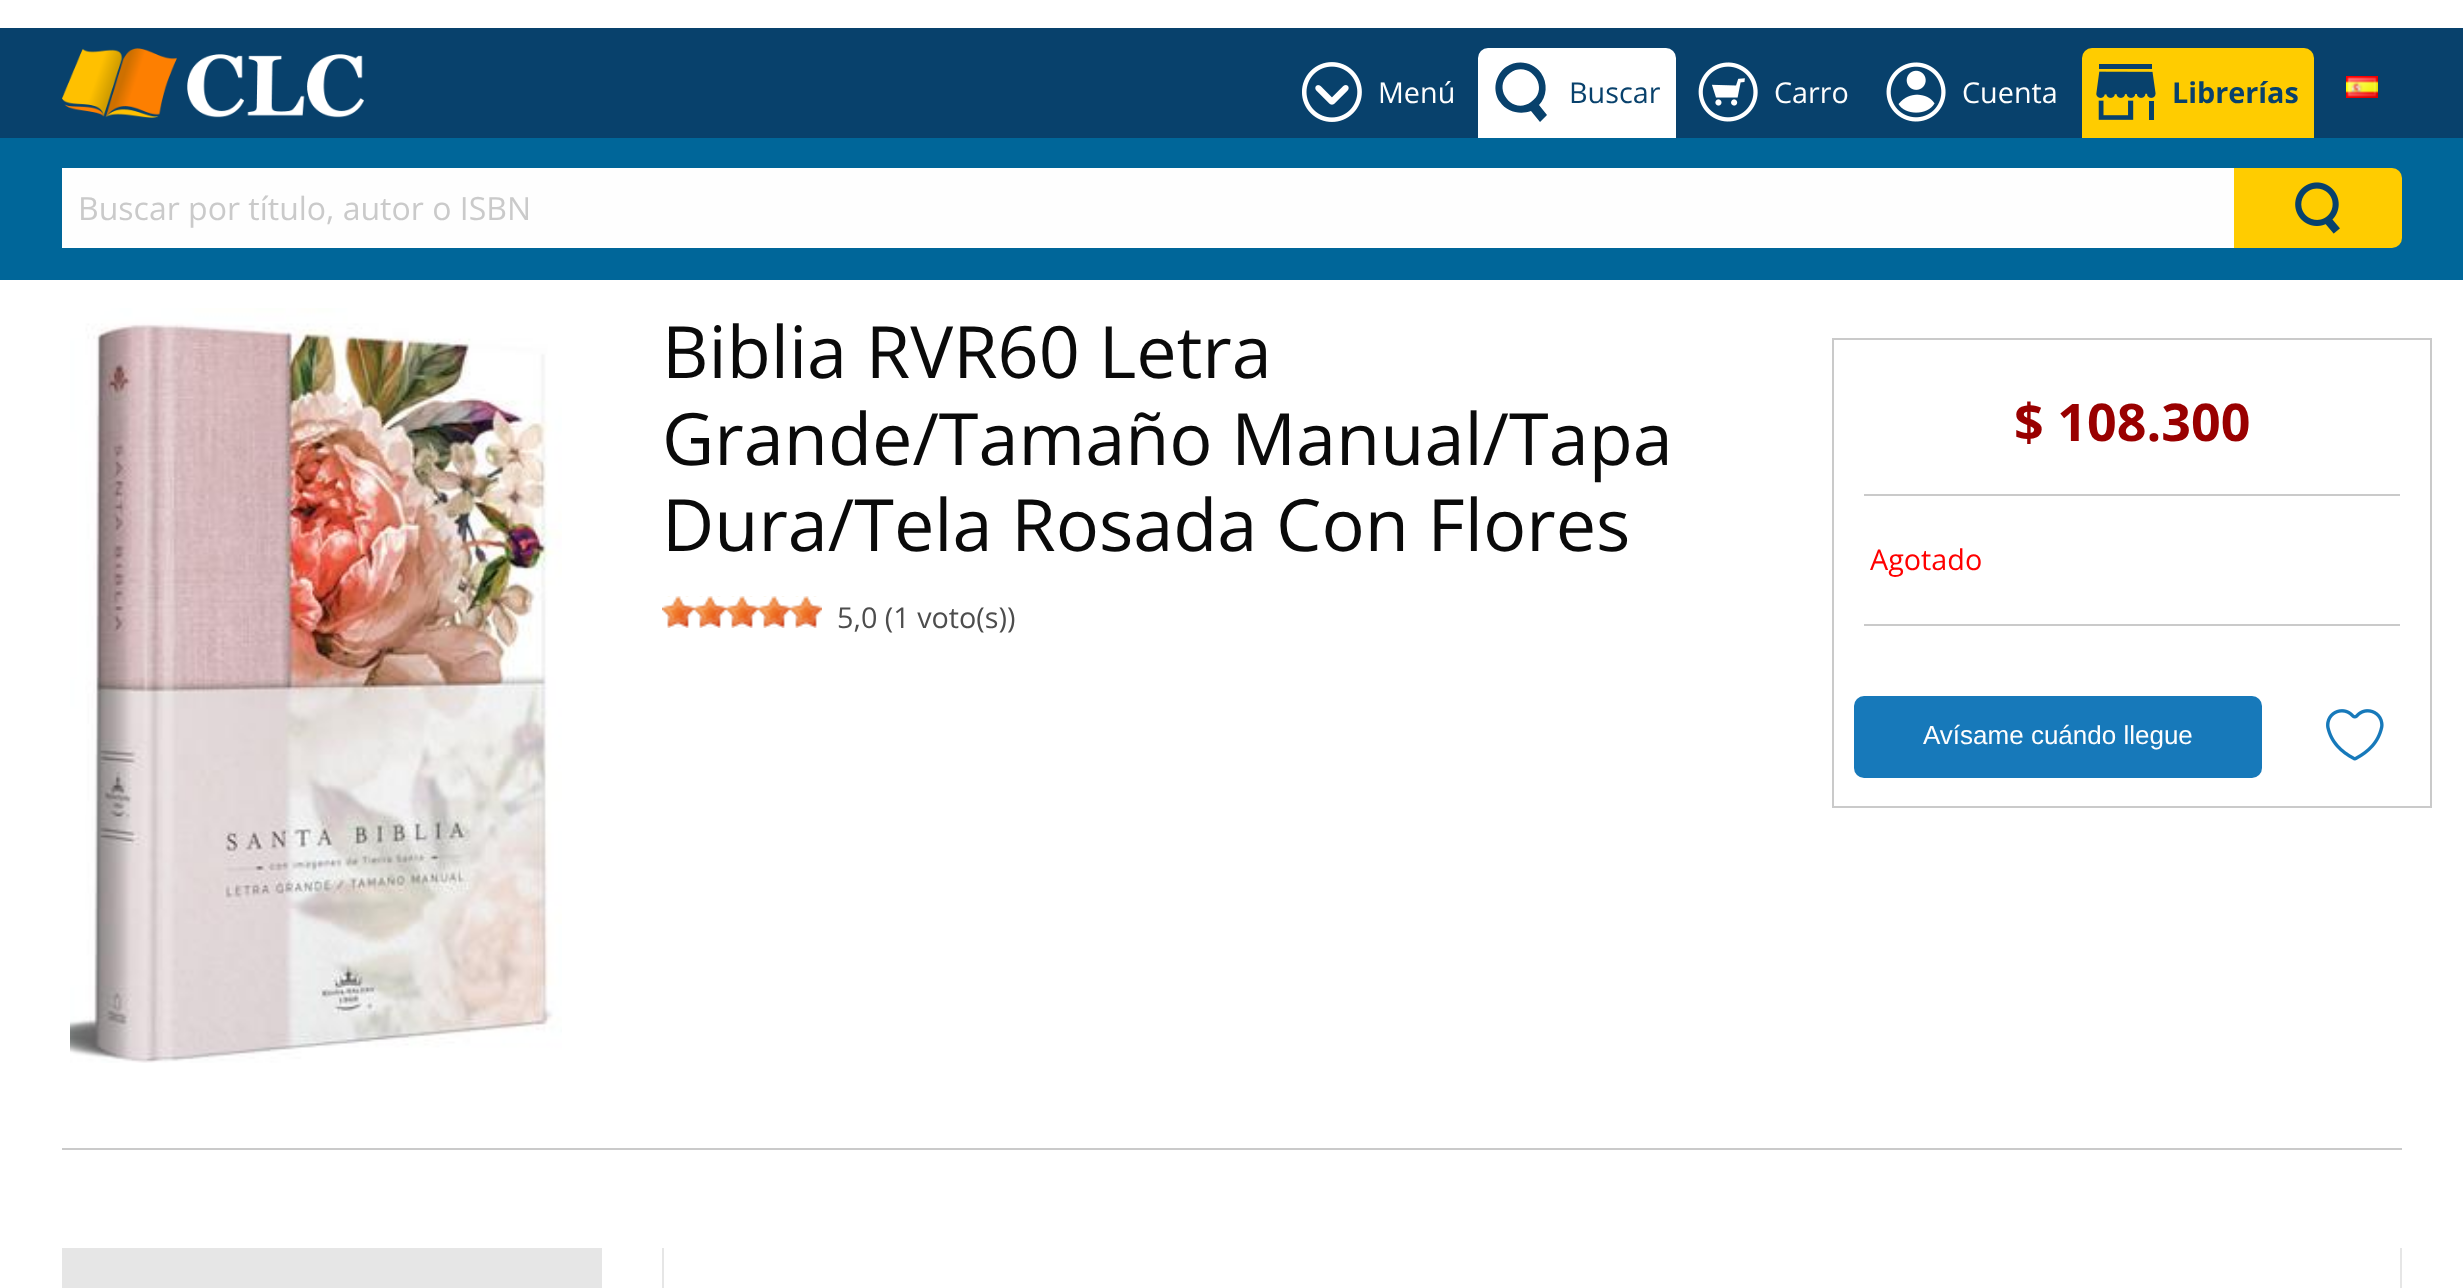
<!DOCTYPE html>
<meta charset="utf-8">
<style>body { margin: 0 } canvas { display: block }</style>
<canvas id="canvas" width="2463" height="1288"></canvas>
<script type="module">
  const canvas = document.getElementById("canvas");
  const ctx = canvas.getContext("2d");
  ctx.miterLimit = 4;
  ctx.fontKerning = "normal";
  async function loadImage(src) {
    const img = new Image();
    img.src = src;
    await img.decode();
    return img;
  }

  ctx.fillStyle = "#ffffff";
  ctx.fillRect(0, 0, 2463, 1288);
  ctx.fillStyle = "#08416c";
  ctx.fillRect(0, 28, 2463, 110);
  ctx.drawImage(await loadImage("img1.png"), 62, 48, 302, 70);
  ctx.drawImage(await loadImage("img2.png"), 1302, 62, 60, 60);
  ctx.font = "28.75px Open Sans";
  ctx.fillStyle = "#fefefe";
  ctx.fillText("Menú", 1378, 103);
  ctx.fillStyle = "#ffffff";
  ctx.beginPath();
  ctx.roundRect(1478, 48, 198, 90, [10, 10, 0, 0]);
  ctx.fill();
  ctx.fillStyle = "#08416c";
  ctx.beginPath();
  ctx.moveTo(1540, 122);
  ctx.lineTo(1531, 111);
  ctx.bezierCurveTo(1520, 115, 1507, 112, 1500, 102);
  ctx.bezierCurveTo(1492, 91, 1495, 75, 1506, 67);
  ctx.bezierCurveTo(1518, 59, 1533, 62, 1541, 73);
  ctx.bezierCurveTo(1548, 83, 1547, 97, 1539, 105);
  ctx.lineTo(1547, 115);
  ctx.closePath();
  ctx.moveTo(1531, 102);
  ctx.bezierCurveTo(1551, 89, 1530, 59, 1510, 73);
  ctx.bezierCurveTo(1491, 87, 1512, 116, 1531, 102);
  ctx.closePath();
  ctx.fill("evenodd");
  ctx.fillText("Buscar", 1569, 103);
  ctx.drawImage(await loadImage("img3.png"), 1698, 62, 60, 60);
  ctx.fillStyle = "#fefefe";
  ctx.fillText("Carro", 1774, 103);
  ctx.drawImage(await loadImage("img4.png"), 1886, 62, 60, 60);
  ctx.fillText("Cuenta", 1962, 103);
  ctx.fillStyle = "#ffcc00";
  ctx.beginPath();
  ctx.roundRect(2082, 48, 232, 90, [10, 10, 0, 0]);
  ctx.fill();
  ctx.drawImage(await loadImage("img5.png"), 2096, 64, 60, 56);
  ctx.font = "bold 28.75px Open Sans";
  ctx.fillStyle = "#08416c";
  ctx.fillText("Librerías", 2172, 103);
  ctx.drawImage(await loadImage("img6.png"), 2346, 76, 32, 22);
  ctx.fillStyle = "#006699";
  ctx.fillRect(0, 138, 2463, 142);
  ctx.fillStyle = "#fefefe";
  ctx.fillRect(62, 170, 2172, 76);
  ctx.fillStyle = "#ffffff";
  ctx.fillRect(62, 168, 2172, 2);
  ctx.fillRect(62, 246, 2172, 2);
  ctx.font = "32px Open Sans";
  ctx.fillStyle = "#cacaca";
  ctx.fillText("Buscar por título, autor o ISBN", 78, 220);
  ctx.fillStyle = "#ffcc00";
  ctx.beginPath();
  ctx.roundRect(2234, 168, 168, 80, [0, 10, 10, 0]);
  ctx.fill();
  ctx.drawImage(await loadImage("img7.png"), 2295, 182, 45, 52);
  ctx.drawImage(await loadImage("img8.png"), 70, 308, 492, 755);
  ctx.font = "72px Open Sans";
  ctx.fillStyle = "#0a0a0a";
  ctx.fillText("Biblia RVR60 Letra", 662, 378);
  ctx.fillText("Grande/Tamaño Manual/Tapa", 662, 465);
  ctx.fillText("Dura/Tela Rosada Con Flores", 662, 551);
  ctx.drawImage(await loadImage("img9.png"), 662, 596, 160, 32);
  ctx.drawImage(await loadImage("img10.png"), 662, 596, 160, 32);
  ctx.font = "28.75px Open Sans";
  ctx.fillStyle = "#4d4d4d";
  ctx.fillText("5,0 (1 voto(s))", 837, 628);
  ctx.strokeStyle = "#cacaca";
  ctx.lineWidth = 2;
  ctx.strokeRect(1833, 339, 598, 468);
  ctx.font = "bold 52px Open Sans";
  ctx.fillStyle = "#990000";
  ctx.fillText("$ 108.300", 2014, 441);
  ctx.fillStyle = "#cacaca";
  ctx.fillRect(1864, 494, 536, 2);
  ctx.font = "28.75px Open Sans";
  ctx.fillStyle = "#ff0000";
  ctx.fillText("Agotado", 1870, 570);
  ctx.fillStyle = "#cacaca";
  ctx.fillRect(1864, 624, 536, 2);
  ctx.fillStyle = "#1779ba";
  ctx.beginPath();
  ctx.roundRect(1854, 696, 408, 82, 10);
  ctx.fill();
  ctx.font = "26px Liberation Sans";
  ctx.fillStyle = "#fefefe";
  ctx.fillText("Avísame cuándo llegue", 1923, 744);
  ctx.drawImage(await loadImage("img11.png"), 2326, 709, 58, 52);
  ctx.fillStyle = "#cacaca";
  ctx.fillRect(62, 1148, 2340, 2);
  ctx.fillStyle = "#e6e6e6";
  ctx.fillRect(62, 1248, 540, 40);
  ctx.fillRect(2400, 1248, 2, 40);
  ctx.fillRect(662, 1248, 2, 40);
</script>
